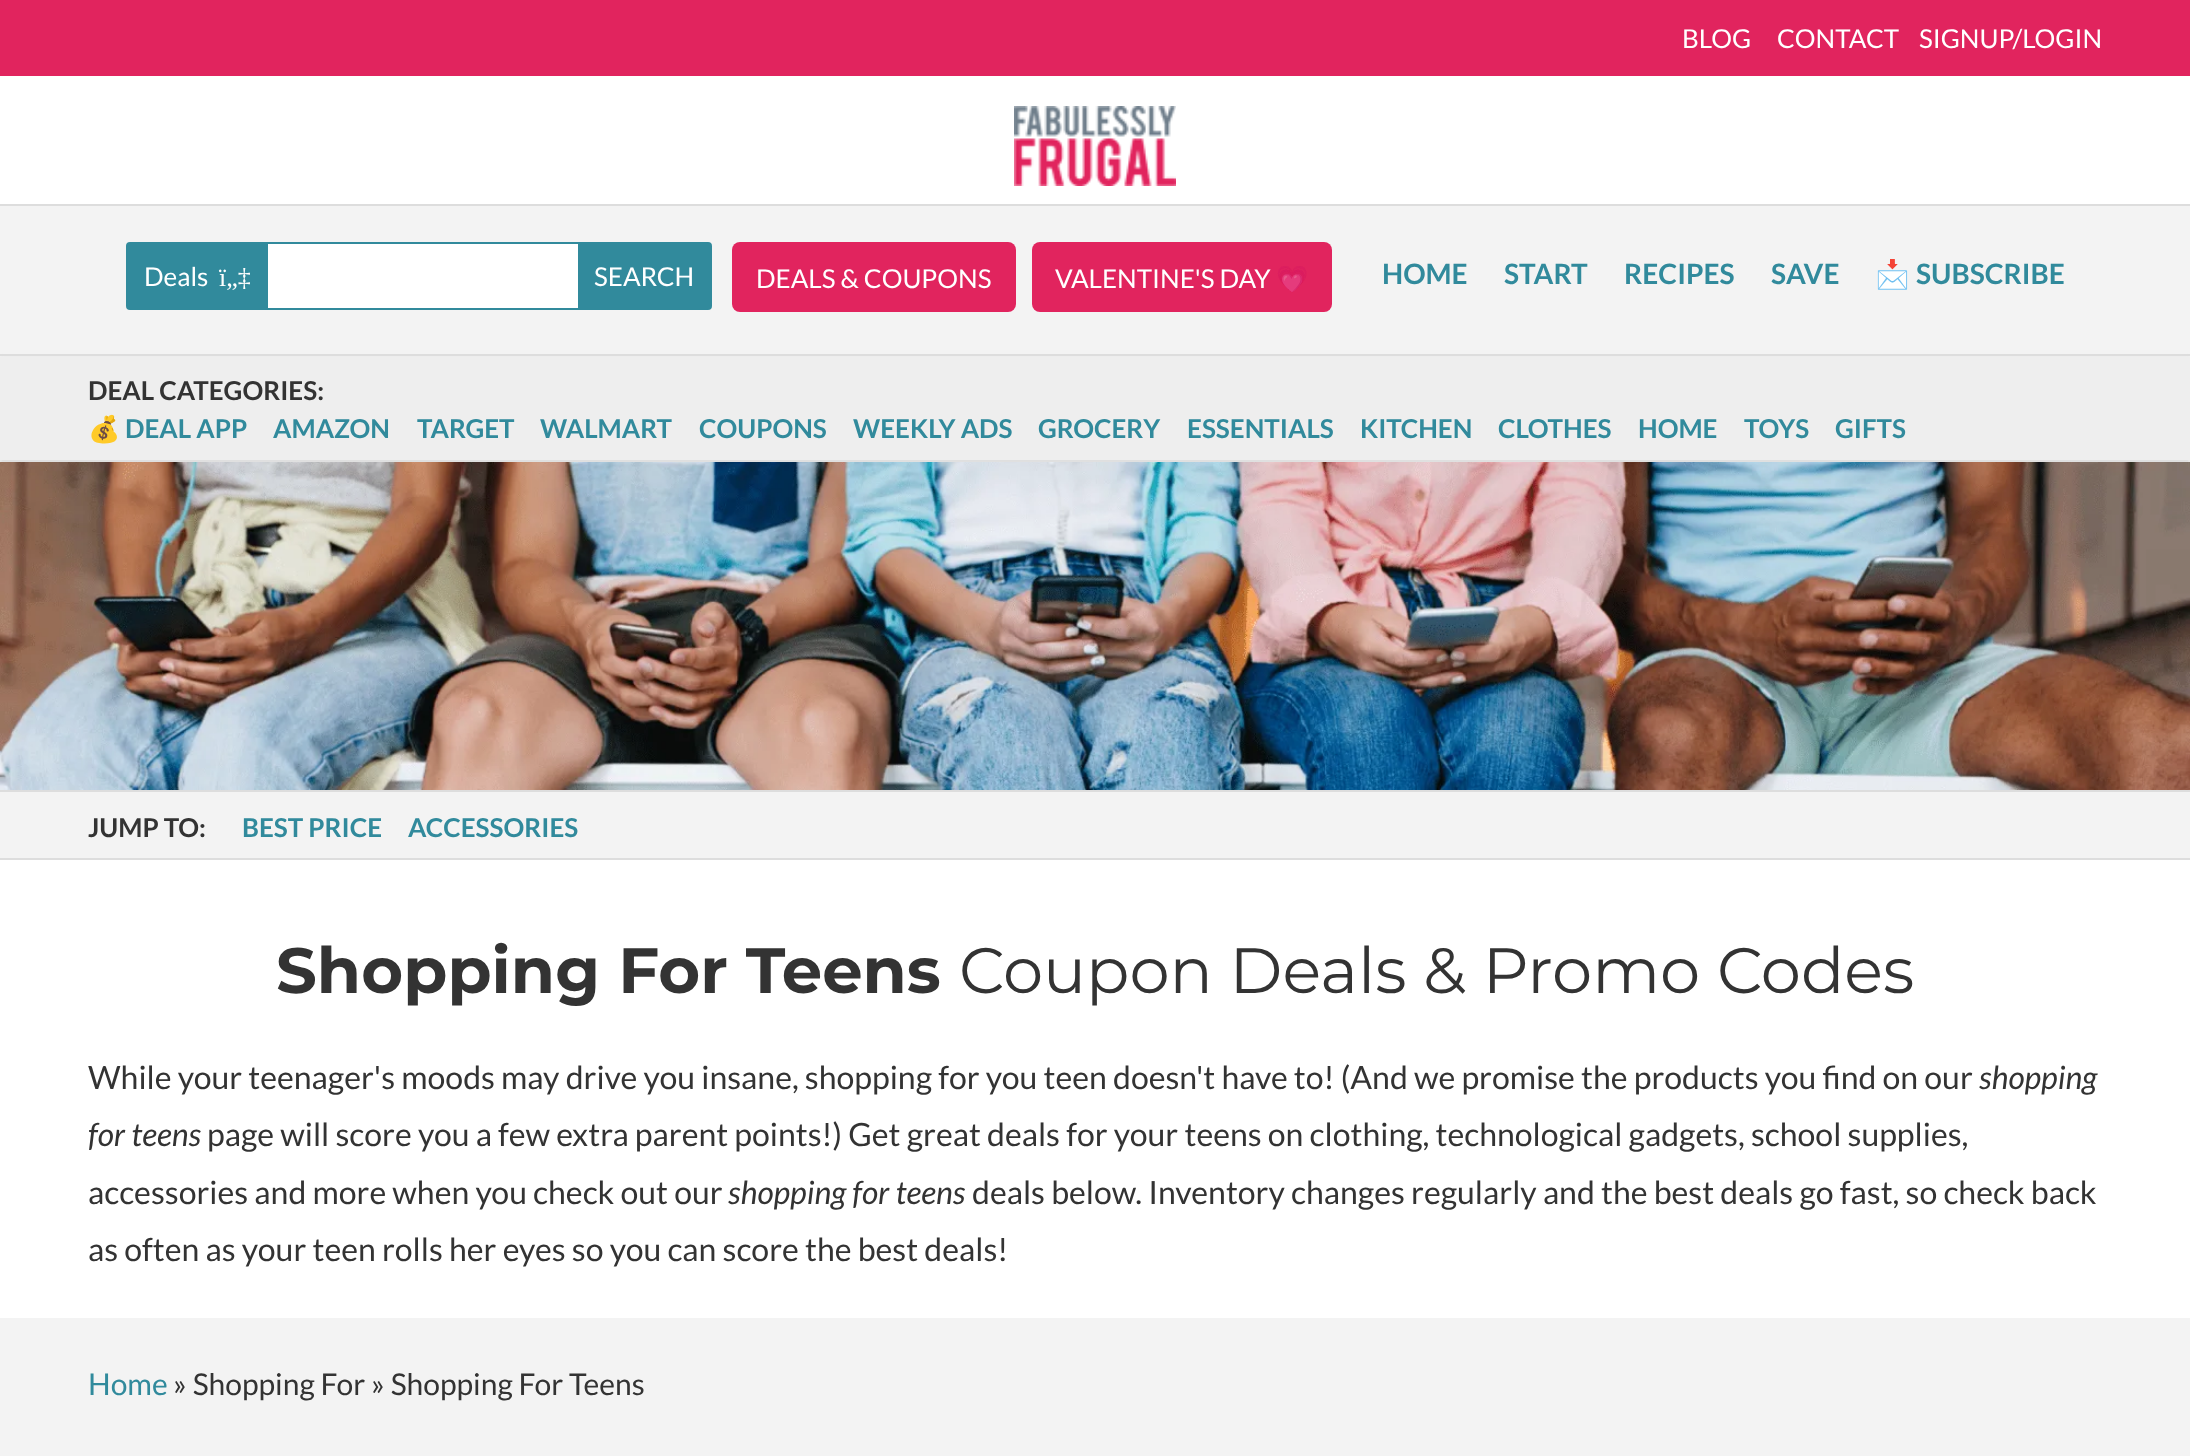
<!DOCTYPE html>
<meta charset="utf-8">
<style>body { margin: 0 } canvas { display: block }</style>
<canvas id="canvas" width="2190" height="1456"></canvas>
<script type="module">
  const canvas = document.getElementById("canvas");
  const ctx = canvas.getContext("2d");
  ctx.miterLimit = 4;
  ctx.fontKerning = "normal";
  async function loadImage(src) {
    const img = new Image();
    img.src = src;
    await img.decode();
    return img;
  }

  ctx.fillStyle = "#f3f3f3";
  ctx.fillRect(0, 0, 2190, 1456);
  ctx.fillStyle = "#e1245e";
  ctx.fillRect(0, 0, 2190, 76);
  ctx.font = "26px Lato";
  ctx.fillStyle = "#ffffff";
  ctx.fillText("BLOG", 1682, 48);
  ctx.fillText("CONTACT", 1777, 48);
  ctx.fillText("SIGNUP/LOGIN", 1919, 48);
  ctx.fillRect(0, 76, 2190, 128);
  ctx.fillStyle = "#dddddd";
  ctx.fillRect(0, 204, 2190, 2);
  ctx.drawImage(await loadImage("img1.png"), 1014, 106, 162, 80);
  ctx.beginPath();
  ctx.roundRect(127, 243, 584, 66, 3);
  ctx.strokeStyle = "#318a9c";
  ctx.lineWidth = 2;
  ctx.stroke();
  ctx.fillStyle = "#318a9c";
  ctx.fillRect(128, 244, 140, 64);
  ctx.fillStyle = "#ffffff";
  ctx.fillText("Deals", 144, 286);
  ctx.font = "26px Liberation Serif";
  ctx.fillText("ï„‡", 219, 286);
  ctx.fillRect(268, 244, 310, 64);
  ctx.fillStyle = "#318a9c";
  ctx.fillRect(578, 244, 132, 64);
  ctx.font = "26px Lato";
  ctx.fillStyle = "#ffffff";
  ctx.fillText("SEARCH", 594, 286);
  ctx.fillStyle = "#e1245e";
  ctx.beginPath();
  ctx.roundRect(732, 242, 284, 70, 8);
  ctx.fill();
  ctx.fillStyle = "#ffffff";
  ctx.fillText("DEALS & COUPONS", 756, 288);
  ctx.fillStyle = "#e1245e";
  ctx.beginPath();
  ctx.roundRect(1032, 242, 300, 70, 8);
  ctx.fill();
  ctx.fillStyle = "#ffffff";
  ctx.fillText("VALENTINE'S DAY", 1055, 288);
  ctx.font = "26px Noto Color Emoji";
  ctx.fillText("💗", 1276, 288);
  ctx.font = "bold 28px Lato";
  ctx.fillStyle = "#318a9c";
  ctx.fillText("HOME", 1382, 284);
  ctx.fillText("START", 1504, 284);
  ctx.fillText("RECIPES", 1624, 284);
  ctx.fillText("SAVE", 1771, 284);
  ctx.font = "bold 28px Noto Color Emoji";
  ctx.fillText("📩", 1875, 284);
  ctx.font = "bold 28px Lato";
  ctx.fillText("SUBSCRIBE", 1916, 284);
  ctx.fillStyle = "#dddddd";
  ctx.filter = "blur(2px)";
  ctx.beginPath();
  ctx.rect(0, 358, 2190, 106);
  ctx.fill();
  ctx.filter = "none";
  ctx.fillStyle = "#eeeeee";
  ctx.fillRect(0, 357, 2190, 103);
  ctx.fillStyle = "#dddddd";
  ctx.fillRect(0, 354, 2190, 2);
  ctx.font = "bold 26px Lato";
  ctx.fillStyle = "#333333";
  ctx.fillText("DEAL CATEGORIES:", 88, 400);
  ctx.font = "bold 26px Noto Color Emoji";
  ctx.fillStyle = "#318a9c";
  ctx.fillText("💰", 88, 438);
  ctx.font = "bold 26px Lato";
  ctx.fillText("DEAL APP", 125, 438);
  ctx.fillText("AMAZON", 273, 438);
  ctx.fillText("TARGET", 417, 438);
  ctx.fillText("WALMART", 540, 438);
  ctx.fillText("COUPONS", 699, 438);
  ctx.fillText("WEEKLY ADS", 853, 438);
  ctx.fillText("GROCERY", 1038, 438);
  ctx.fillText("ESSENTIALS", 1187, 438);
  ctx.fillText("KITCHEN", 1360, 438);
  ctx.fillText("CLOTHES", 1498, 438);
  ctx.fillText("HOME", 1638, 438);
  ctx.fillText("TOYS", 1744, 438);
  ctx.fillText("GIFTS", 1835, 438);
  ctx.drawImage(await loadImage("img2.png"), 0, 462, 2190, 328);
  ctx.fillStyle = "#dddddd";
  ctx.fillRect(0, 790, 2190, 2);
  ctx.fillRect(0, 858, 2190, 2);
  ctx.fillStyle = "#333333";
  ctx.fillText("JUMP TO:", 88, 837);
  ctx.fillStyle = "#318a9c";
  ctx.fillText("BEST PRICE", 242, 837);
  ctx.fillText("ACCESSORIES", 408, 837);
  ctx.fillStyle = "#ffffff";
  ctx.fillRect(0, 860, 2190, 458);
  ctx.font = "bold 64px Montserrat";
  ctx.fillStyle = "#333333";
  ctx.fillText("Shopping For Teens", 276, 993);
  ctx.font = "64px Montserrat";
  ctx.fillText("Coupon Deals & Promo Codes", 959, 993);
  ctx.font = "32px Lato";
  ctx.fillText("While your teenager's moods may drive you insane, shopping for you teen doesn't have to! (And we promise the products you find on our", 88, 1089);
  ctx.font = "italic 32px Lato";
  ctx.fillText("shopping", 1979, 1089);
  ctx.fillText("for teens", 88, 1146);
  ctx.font = "32px Lato";
  ctx.fillText("page will score you a few extra parent points!) Get great deals for your teens on clothing, technological gadgets, school supplies,", 207, 1146);
  ctx.fillText("accessories and more when you check out our", 88, 1204);
  ctx.font = "italic 32px Lato";
  ctx.fillText("shopping for teens", 728, 1204);
  ctx.font = "32px Lato";
  ctx.fillText("deals below. Inventory changes regularly and the best deals go fast, so check back", 972, 1204);
  ctx.fillText("as often as your teen rolls her eyes so you can score the best deals!", 88, 1261);
  ctx.font = "30px Lato";
  ctx.fillStyle = "#318a9c";
  ctx.fillText("Home", 88, 1395);
  ctx.fillStyle = "#333333";
  ctx.fillText("» Shopping For » Shopping For Teens", 173, 1395);
</script>
